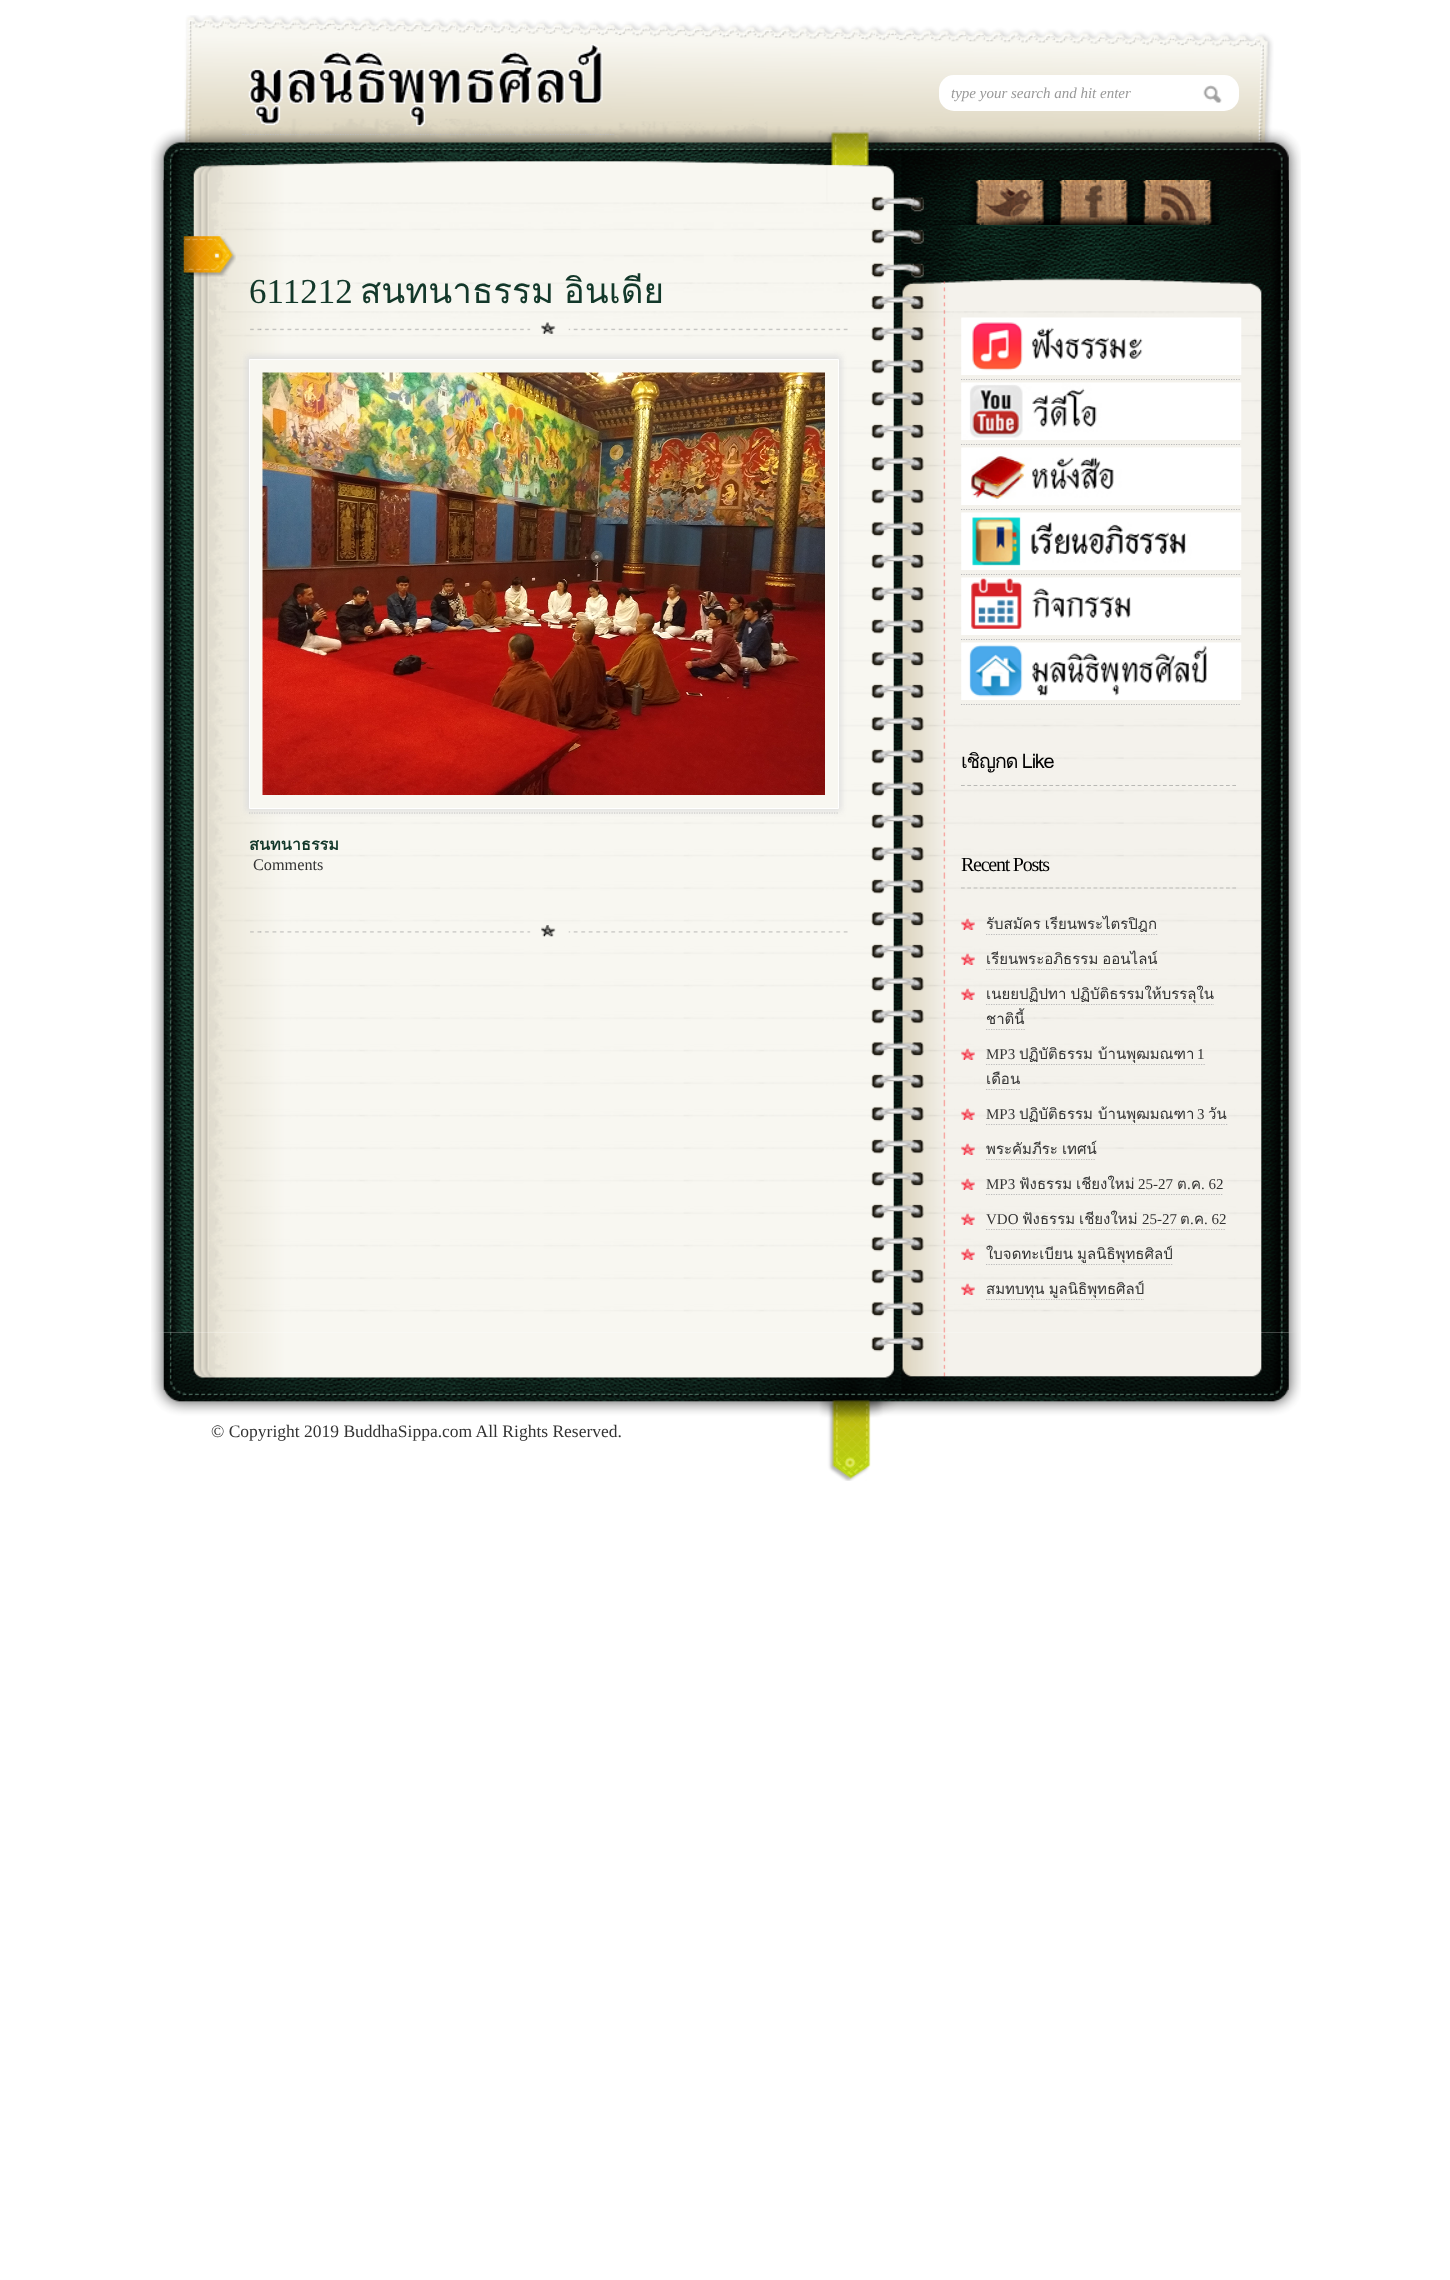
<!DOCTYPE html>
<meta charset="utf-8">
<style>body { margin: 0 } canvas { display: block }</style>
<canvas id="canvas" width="1450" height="2280"></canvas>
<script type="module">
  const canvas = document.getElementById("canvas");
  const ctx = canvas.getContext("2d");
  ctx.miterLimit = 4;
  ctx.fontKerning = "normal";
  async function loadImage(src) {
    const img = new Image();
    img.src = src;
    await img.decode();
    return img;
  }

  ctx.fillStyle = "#ffffff";
  ctx.fillRect(0, 0, 1450, 2280);
  ctx.drawImage(await loadImage("img1.png"), 151, 15, 1150, 165);
  ctx.drawImage(await loadImage("img2.png"), 248, 44, 355, 83);
  ctx.beginPath();
  ctx.roundRect(939, 75, 300, 36, 15);
  ctx.fill();
  ctx.drawImage(await loadImage("img3.png"), 1203, 85, 19, 18);
  ctx.font = "italic 15px Liberation Serif";
  ctx.fillStyle = "#999999";
  ctx.fillText("type your search and hit enter", 951, 98);
  ctx.beginPath();
  ctx.moveTo(242.5, 134.5);
  ctx.lineTo(615, 134.5);
  ctx.strokeStyle = "#bbbbbb";
  ctx.lineWidth = 1.2;
  ctx.setLineDash([1.25, 1.25]);
  ctx.stroke();
  ctx.drawImage(await loadImage("img26.png"), 151, 1332, 1150, 149);
  ctx.drawImage(await loadImage("img4.png"), 151, 180, 1150, 1153);
  ctx.drawImage(await loadImage("img5.png"), 163, 180, 1126, 140);
  ctx.drawImage(await loadImage("img6.png"), 183, 236, 53, 41);
  ctx.drawImage(await loadImage("img7.png"), 250, 322, 598, 12);
  ctx.font = "35px Liberation Serif";
  ctx.fillStyle = "#13382a";
  ctx.fillText("611212", 249, 303);
  ctx.wordSpacing = "-2px";
  ctx.font = "35px Loma";
  ctx.fillText("สนทนาธรรม อินเดีย", 360, 303);
  ctx.drawImage(await loadImage("img8.png"), 250, 925, 598, 12);
  ctx.beginPath();
  ctx.moveTo(249, 813);
  ctx.lineTo(839, 813);
  ctx.stroke();
  ctx.fillStyle = "#dddddd";
  ctx.filter = "blur(3px)";
  ctx.beginPath();
  ctx.rect(246, 356, 595, 455);
  ctx.fill();
  ctx.filter = "none";
  ctx.fillStyle = "#f8f7f1";
  ctx.beginPath();
  ctx.rect(249.5, 359.5, 589, 449);
  ctx.fill();
  ctx.strokeStyle = "#ffffff";
  ctx.lineWidth = 1;
  ctx.setLineDash([]);
  ctx.stroke();
  ctx.drawImage(await loadImage("img9.png"), 262, 372, 563, 423);
  ctx.wordSpacing = "0px";
  ctx.font = "bold 16.25px Loma";
  ctx.fillStyle = "#13382a";
  ctx.fillText("สนทนาธรรม", 249, 850);
  ctx.font = "16.25px Liberation Serif";
  ctx.fillStyle = "#333333";
  ctx.fillText("Comments", 253, 870);
  ctx.drawImage(await loadImage("img10.png"), 934, 216, 290, 11);
  ctx.drawImage(await loadImage("img11.png"), 968, 180, 82, 45);
  ctx.drawImage(await loadImage("img12.png"), 1051, 180, 84, 45);
  ctx.drawImage(await loadImage("img13.png"), 1135, 180, 84, 45);
  ctx.drawImage(await loadImage("img14.png"), 961, 317, 281, 58);
  ctx.beginPath();
  ctx.moveTo(961, 379.5);
  ctx.lineTo(1241, 379.5);
  ctx.strokeStyle = "#bbbbbb";
  ctx.lineWidth = 1.2;
  ctx.setLineDash([1.25, 1.25]);
  ctx.stroke();
  ctx.drawImage(await loadImage("img15.png"), 961, 382, 281, 58);
  ctx.beginPath();
  ctx.moveTo(961, 444.5);
  ctx.lineTo(1241, 444.5);
  ctx.stroke();
  ctx.drawImage(await loadImage("img16.png"), 961, 447, 281, 58);
  ctx.beginPath();
  ctx.moveTo(961, 509.5);
  ctx.lineTo(1241, 509.5);
  ctx.stroke();
  ctx.drawImage(await loadImage("img17.png"), 961, 512, 281, 58);
  ctx.beginPath();
  ctx.moveTo(961, 574.5);
  ctx.lineTo(1241, 574.5);
  ctx.stroke();
  ctx.drawImage(await loadImage("img18.png"), 961, 577, 281, 58);
  ctx.beginPath();
  ctx.moveTo(961, 639.5);
  ctx.lineTo(1241, 639.5);
  ctx.stroke();
  ctx.drawImage(await loadImage("img19.png"), 961, 642, 281, 58);
  ctx.beginPath();
  ctx.moveTo(961, 704.5);
  ctx.lineTo(1241, 704.5);
  ctx.stroke();
  ctx.beginPath();
  ctx.moveTo(961, 785.5);
  ctx.lineTo(1236, 785.5);
  ctx.strokeStyle = "#b9b9b5";
  ctx.setLineDash([3.75, 2.56]);
  ctx.stroke();
  ctx.letterSpacing = "-1.25px";
  ctx.wordSpacing = "-1px";
  ctx.font = "20px Loma";
  ctx.fillStyle = "#000000";
  ctx.fillText("เชิญกด Like", 961, 768);
  ctx.beginPath();
  ctx.moveTo(961, 888);
  ctx.lineTo(1236, 888);
  ctx.stroke();
  ctx.wordSpacing = "0px";
  ctx.font = "20px Liberation Serif";
  ctx.fillText("Recent Posts", 961, 871);
  ctx.drawImage(await loadImage("img20.png"), 961, 918, 14, 12);
  ctx.letterSpacing = "0px";
  ctx.wordSpacing = "-1px";
  ctx.font = "15px Loma";
  ctx.fillStyle = "#333333";
  ctx.fillText("รับสมัคร เรียนพระไตรปิฎก", 986, 929);
  ctx.beginPath();
  ctx.moveTo(986, 934.5);
  ctx.lineTo(1157.5, 934.5);
  ctx.strokeStyle = "#bbbbbb";
  ctx.setLineDash([1.25, 1.25]);
  ctx.stroke();
  ctx.drawImage(await loadImage("img21.png"), 961, 953, 14, 12);
  ctx.fillText("เรียนพระอภิธรรม ออนไลน์", 986, 964);
  ctx.beginPath();
  ctx.moveTo(986, 969.5);
  ctx.lineTo(1157.5, 969.5);
  ctx.stroke();
  ctx.drawImage(await loadImage("img22.png"), 961, 988, 14, 12);
  ctx.fillText("เนยยปฏิปทา ปฏิบัติธรรมให้บรรลุใน", 986, 999);
  ctx.beginPath();
  ctx.moveTo(986, 1004.5);
  ctx.lineTo(1214, 1004.5);
  ctx.stroke();
  ctx.wordSpacing = "0px";
  ctx.fillText("ชาตินี้", 986, 1024);
  ctx.beginPath();
  ctx.moveTo(986, 1029.5);
  ctx.lineTo(1025, 1029.5);
  ctx.stroke();
  ctx.drawImage(await loadImage("img20.png"), 961, 1048, 14, 12);
  ctx.font = "15px Liberation Serif";
  ctx.fillText("MP3", 986, 1059);
  ctx.beginPath();
  ctx.moveTo(986, 1064.5);
  ctx.lineTo(1205, 1064.5);
  ctx.stroke();
  ctx.font = "15px Loma";
  ctx.fillText("ปฏิบัติธรรม บ้านพุฒมณฑา", 1019, 1059);
  ctx.font = "15px Liberation Serif";
  ctx.fillText("1", 1197, 1059);
  ctx.font = "15px Loma";
  ctx.fillText("เดือน", 986, 1084);
  ctx.beginPath();
  ctx.moveTo(986, 1089.5);
  ctx.lineTo(1020, 1089.5);
  ctx.stroke();
  ctx.drawImage(await loadImage("img23.png"), 961, 1108, 14, 12);
  ctx.font = "15px Liberation Serif";
  ctx.fillText("MP3", 986, 1119);
  ctx.beginPath();
  ctx.moveTo(986, 1124.5);
  ctx.lineTo(1227.5, 1124.5);
  ctx.stroke();
  ctx.font = "15px Loma";
  ctx.fillText("ปฏิบัติธรรม บ้านพุฒมณฑา", 1019, 1119);
  ctx.font = "15px Liberation Serif";
  ctx.fillText("3", 1197, 1119);
  ctx.font = "15px Loma";
  ctx.fillText("วัน", 1208, 1119);
  ctx.drawImage(await loadImage("img24.png"), 961, 1143, 14, 12);
  ctx.wordSpacing = "-1px";
  ctx.fillText("พระคัมภีระ เทศน์", 986, 1154);
  ctx.beginPath();
  ctx.moveTo(986, 1159.5);
  ctx.lineTo(1096, 1159.5);
  ctx.stroke();
  ctx.drawImage(await loadImage("img20.png"), 961, 1178, 14, 12);
  ctx.wordSpacing = "0px";
  ctx.font = "15px Liberation Serif";
  ctx.fillText("MP3", 986, 1189);
  ctx.font = "15px Loma";
  ctx.fillText("ฟังธรรม", 1019, 1189);
  ctx.fillText("เชียงใหม่", 1076, 1189);
  ctx.font = "15px Liberation Serif";
  ctx.fillText("25-27", 1138, 1189);
  ctx.font = "15px Loma";
  ctx.fillText("ต", 1177, 1189);
  ctx.font = "15px Liberation Serif";
  ctx.fillText(".", 1187, 1189);
  ctx.beginPath();
  ctx.moveTo(986, 1194.5);
  ctx.lineTo(1222.5, 1194.5);
  ctx.stroke();
  ctx.font = "15px Loma";
  ctx.fillText("ค", 1191, 1189);
  ctx.font = "15px Liberation Serif";
  ctx.fillText(". 62", 1201, 1189);
  ctx.drawImage(await loadImage("img21.png"), 961, 1213, 14, 12);
  ctx.fillText("VDO", 986, 1224);
  ctx.font = "15px Loma";
  ctx.fillText("ฟังธรรม", 1022, 1224);
  ctx.fillText("เชียงใหม่", 1079, 1224);
  ctx.font = "15px Liberation Serif";
  ctx.fillText("25-27", 1142, 1224);
  ctx.font = "15px Loma";
  ctx.fillText("ต", 1180, 1224);
  ctx.font = "15px Liberation Serif";
  ctx.fillText(".", 1190, 1224);
  ctx.beginPath();
  ctx.moveTo(986, 1229.5);
  ctx.lineTo(1226, 1229.5);
  ctx.stroke();
  ctx.font = "15px Loma";
  ctx.fillText("ค", 1194, 1224);
  ctx.font = "15px Liberation Serif";
  ctx.fillText(". 62", 1204, 1224);
  ctx.drawImage(await loadImage("img22.png"), 961, 1248, 14, 12);
  ctx.wordSpacing = "-1px";
  ctx.font = "15px Loma";
  ctx.fillText("ใบจดทะเบียน มูลนิธิพุทธศิลป์", 986, 1259);
  ctx.beginPath();
  ctx.moveTo(986, 1264.5);
  ctx.lineTo(1172.5, 1264.5);
  ctx.stroke();
  ctx.drawImage(await loadImage("img25.png"), 961, 1283, 14, 12);
  ctx.fillText("สมทบทุน มูลนิธิพุทธศิลป์", 986, 1294);
  ctx.beginPath();
  ctx.moveTo(986, 1299.5);
  ctx.lineTo(1144, 1299.5);
  ctx.stroke();
  ctx.wordSpacing = "0px";
  ctx.font = "17.5px Liberation Serif";
  ctx.fillText("© Copyright 2019 BuddhaSippa.com All Rights Reserved.", 211, 1437);
</script>
